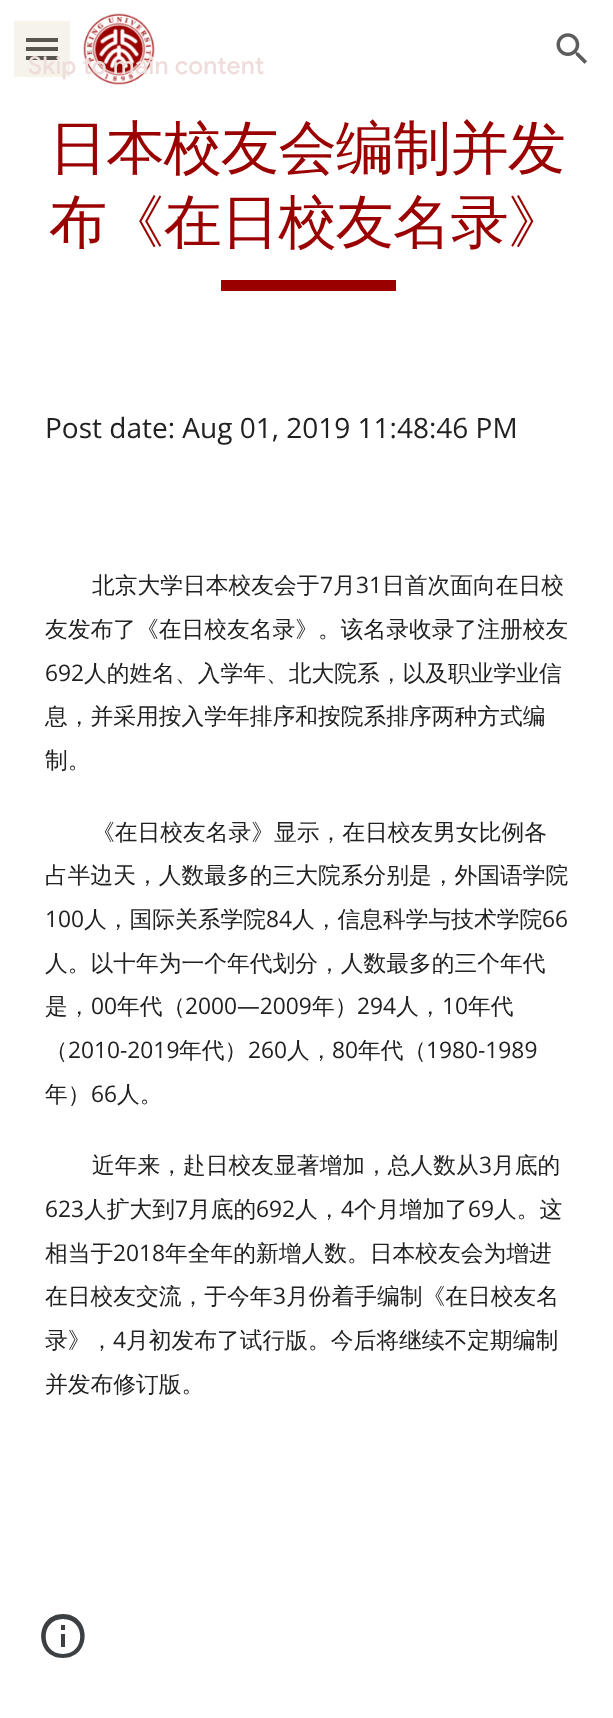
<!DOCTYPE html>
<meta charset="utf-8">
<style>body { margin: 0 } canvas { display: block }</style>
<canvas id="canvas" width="613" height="1718"></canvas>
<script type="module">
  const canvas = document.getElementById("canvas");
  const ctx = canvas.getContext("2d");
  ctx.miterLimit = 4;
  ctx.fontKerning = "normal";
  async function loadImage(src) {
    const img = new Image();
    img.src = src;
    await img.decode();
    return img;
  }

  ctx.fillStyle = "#ffffff";
  ctx.fillRect(0, 0, 613, 1718);
  ctx.fillStyle = "#f6f3ea";
  ctx.fillRect(14, 21, 56, 56);
  ctx.fillStyle = "#5a564d";
  ctx.fillRect(26, 56, 32, 4);
  ctx.drawImage(await loadImage("img1.png"), 83, 13, 72, 72);
  ctx.letterSpacing = "0.25px";
  ctx.font = "500 24.5px Google Sans";
  ctx.fillStyle = "#eedddb";
  ctx.fillText("Skip to main content", 28, 74);
  ctx.fillStyle = "#5a564d";
  ctx.fillRect(26, 38, 32, 4);
  ctx.fillRect(26, 47, 32, 4);
  ctx.drawImage(await loadImage("img2.png"), 556, 33, 31, 31);
  ctx.letterSpacing = "-0.9px";
  ctx.font = "500 58.25px WenQuanYi Zen Hei";
  ctx.fillStyle = "#9a0000";
  ctx.fillText("日本校友会编制并发", 49, 168);
  ctx.fillText("布《在日校友名录》", 49, 242);
  ctx.fillRect(221, 280, 175, 11);
  ctx.letterSpacing = "0px";
  ctx.font = "28px Open Sans";
  ctx.fillStyle = "#212121";
  ctx.fillText("Post date: Aug 01, 2019 11:48:46 PM", 45, 438);
  ctx.font = "500 22.75px WenQuanYi Zen Hei";
  ctx.fillText("北京大学日本校友会于", 92, 593);
  ctx.font = "22.75px Open Sans";
  ctx.fillText("7", 320, 593);
  ctx.font = "500 22.75px WenQuanYi Zen Hei";
  ctx.fillText("月", 333, 593);
  ctx.font = "22.75px Open Sans";
  ctx.fillText("31", 356, 593);
  ctx.font = "500 22.75px WenQuanYi Zen Hei";
  ctx.fillText("日首次面向在日校", 382, 593);
  ctx.fillText("友发布了《在日校友名录》。该名录收录了注册校友", 45, 637);
  ctx.font = "22.75px Open Sans";
  ctx.fillText("692", 45, 681);
  ctx.font = "500 22.75px WenQuanYi Zen Hei";
  ctx.fillText("人的姓名、入学年、北大院系，以及职业学业信", 84, 681);
  ctx.fillText("息，并采用按入学年排序和按院系排序两种方式编", 45, 724);
  ctx.fillText("制。", 45, 768);
  ctx.fillText("《在日校友名录》显示，在日校友男女比例各", 92, 840);
  ctx.fillText("占半边天，人数最多的三大院系分别是，外国语学院", 45, 883);
  ctx.font = "22.75px Open Sans";
  ctx.fillText("100", 45, 927);
  ctx.font = "500 22.75px WenQuanYi Zen Hei";
  ctx.fillText("人，国际关系学院", 84, 927);
  ctx.font = "22.75px Open Sans";
  ctx.fillText("84", 266, 927);
  ctx.font = "500 22.75px WenQuanYi Zen Hei";
  ctx.fillText("人，信息科学与技术学院", 292, 927);
  ctx.font = "22.75px Open Sans";
  ctx.fillText("66", 542, 927);
  ctx.font = "500 22.75px WenQuanYi Zen Hei";
  ctx.fillText("人。以十年为一个年代划分，人数最多的三个年代", 45, 971);
  ctx.fillText("是，", 45, 1014);
  ctx.font = "22.75px Open Sans";
  ctx.fillText("00", 91, 1014);
  ctx.font = "500 22.75px WenQuanYi Zen Hei";
  ctx.fillText("年代（", 117, 1014);
  ctx.font = "22.75px Open Sans";
  ctx.fillText("2000—2009", 185, 1014);
  ctx.font = "500 22.75px WenQuanYi Zen Hei";
  ctx.fillText("年）", 312, 1014);
  ctx.font = "22.75px Open Sans";
  ctx.fillText("294", 357, 1014);
  ctx.font = "500 22.75px WenQuanYi Zen Hei";
  ctx.fillText("人，", 396, 1014);
  ctx.font = "22.75px Open Sans";
  ctx.fillText("10", 442, 1014);
  ctx.font = "500 22.75px WenQuanYi Zen Hei";
  ctx.fillText("年代", 468, 1014);
  ctx.fillText("（", 45, 1058);
  ctx.font = "22.75px Open Sans";
  ctx.fillText("2010-2019", 68, 1058);
  ctx.font = "500 22.75px WenQuanYi Zen Hei";
  ctx.fillText("年代）", 179, 1058);
  ctx.font = "22.75px Open Sans";
  ctx.fillText("260", 248, 1058);
  ctx.font = "500 22.75px WenQuanYi Zen Hei";
  ctx.fillText("人，", 287, 1058);
  ctx.font = "22.75px Open Sans";
  ctx.fillText("80", 332, 1058);
  ctx.font = "500 22.75px WenQuanYi Zen Hei";
  ctx.fillText("年代（", 358, 1058);
  ctx.font = "22.75px Open Sans";
  ctx.fillText("1980-1989", 426, 1058);
  ctx.font = "500 22.75px WenQuanYi Zen Hei";
  ctx.fillText("年）", 45, 1102);
  ctx.font = "22.75px Open Sans";
  ctx.fillText("66", 91, 1102);
  ctx.font = "500 22.75px WenQuanYi Zen Hei";
  ctx.fillText("人。", 117, 1102);
  ctx.fillText("近年来，赴日校友显著增加，总人数从", 92, 1173);
  ctx.font = "22.75px Open Sans";
  ctx.fillText("3", 479, 1173);
  ctx.font = "500 22.75px WenQuanYi Zen Hei";
  ctx.fillText("月底的", 492, 1173);
  ctx.font = "22.75px Open Sans";
  ctx.fillText("623", 45, 1217);
  ctx.font = "500 22.75px WenQuanYi Zen Hei";
  ctx.fillText("人扩大到", 84, 1217);
  ctx.font = "22.75px Open Sans";
  ctx.fillText("7", 175, 1217);
  ctx.font = "500 22.75px WenQuanYi Zen Hei";
  ctx.fillText("月底的", 188, 1217);
  ctx.font = "22.75px Open Sans";
  ctx.fillText("692", 256, 1217);
  ctx.font = "500 22.75px WenQuanYi Zen Hei";
  ctx.fillText("人，", 295, 1217);
  ctx.font = "22.75px Open Sans";
  ctx.fillText("4", 341, 1217);
  ctx.font = "500 22.75px WenQuanYi Zen Hei";
  ctx.fillText("个月增加了", 354, 1217);
  ctx.font = "22.75px Open Sans";
  ctx.fillText("69", 468, 1217);
  ctx.font = "500 22.75px WenQuanYi Zen Hei";
  ctx.fillText("人。这", 494, 1217);
  ctx.fillText("相当于", 45, 1261);
  ctx.font = "22.75px Open Sans";
  ctx.fillText("2018", 113, 1261);
  ctx.font = "500 22.75px WenQuanYi Zen Hei";
  ctx.fillText("年全年的新增人数。日本校友会为增进", 165, 1261);
  ctx.fillText("在日校友交流，于今年", 45, 1304);
  ctx.font = "22.75px Open Sans";
  ctx.fillText("3", 273, 1304);
  ctx.font = "500 22.75px WenQuanYi Zen Hei";
  ctx.fillText("月份着手编制《在日校友名", 286, 1304);
  ctx.fillText("录》，", 45, 1348);
  ctx.font = "22.75px Open Sans";
  ctx.fillText("4", 113, 1348);
  ctx.font = "500 22.75px WenQuanYi Zen Hei";
  ctx.fillText("月初发布了试行版。今后将继续不定期编制", 126, 1348);
  ctx.fillText("并发布修订版。", 45, 1392);
  ctx.fillStyle = "#3c4043";
  ctx.beginPath();
  ctx.moveTo(61, 1647);
  ctx.lineTo(65, 1647);
  ctx.lineTo(65, 1634);
  ctx.lineTo(61, 1634);
  ctx.closePath();
  ctx.moveTo(63, 1614);
  ctx.bezierCurveTo(34, 1614, 34, 1658, 63, 1658);
  ctx.bezierCurveTo(92, 1658, 92, 1614, 63, 1614);
  ctx.closePath();
  ctx.moveTo(63, 1654);
  ctx.bezierCurveTo(40, 1654, 40, 1619, 63, 1619);
  ctx.bezierCurveTo(86, 1619, 86, 1654, 63, 1654);
  ctx.closePath();
  ctx.moveTo(61, 1630);
  ctx.lineTo(65, 1630);
  ctx.lineTo(65, 1625);
  ctx.lineTo(61, 1625);
  ctx.closePath();
  ctx.fill();
</script>
